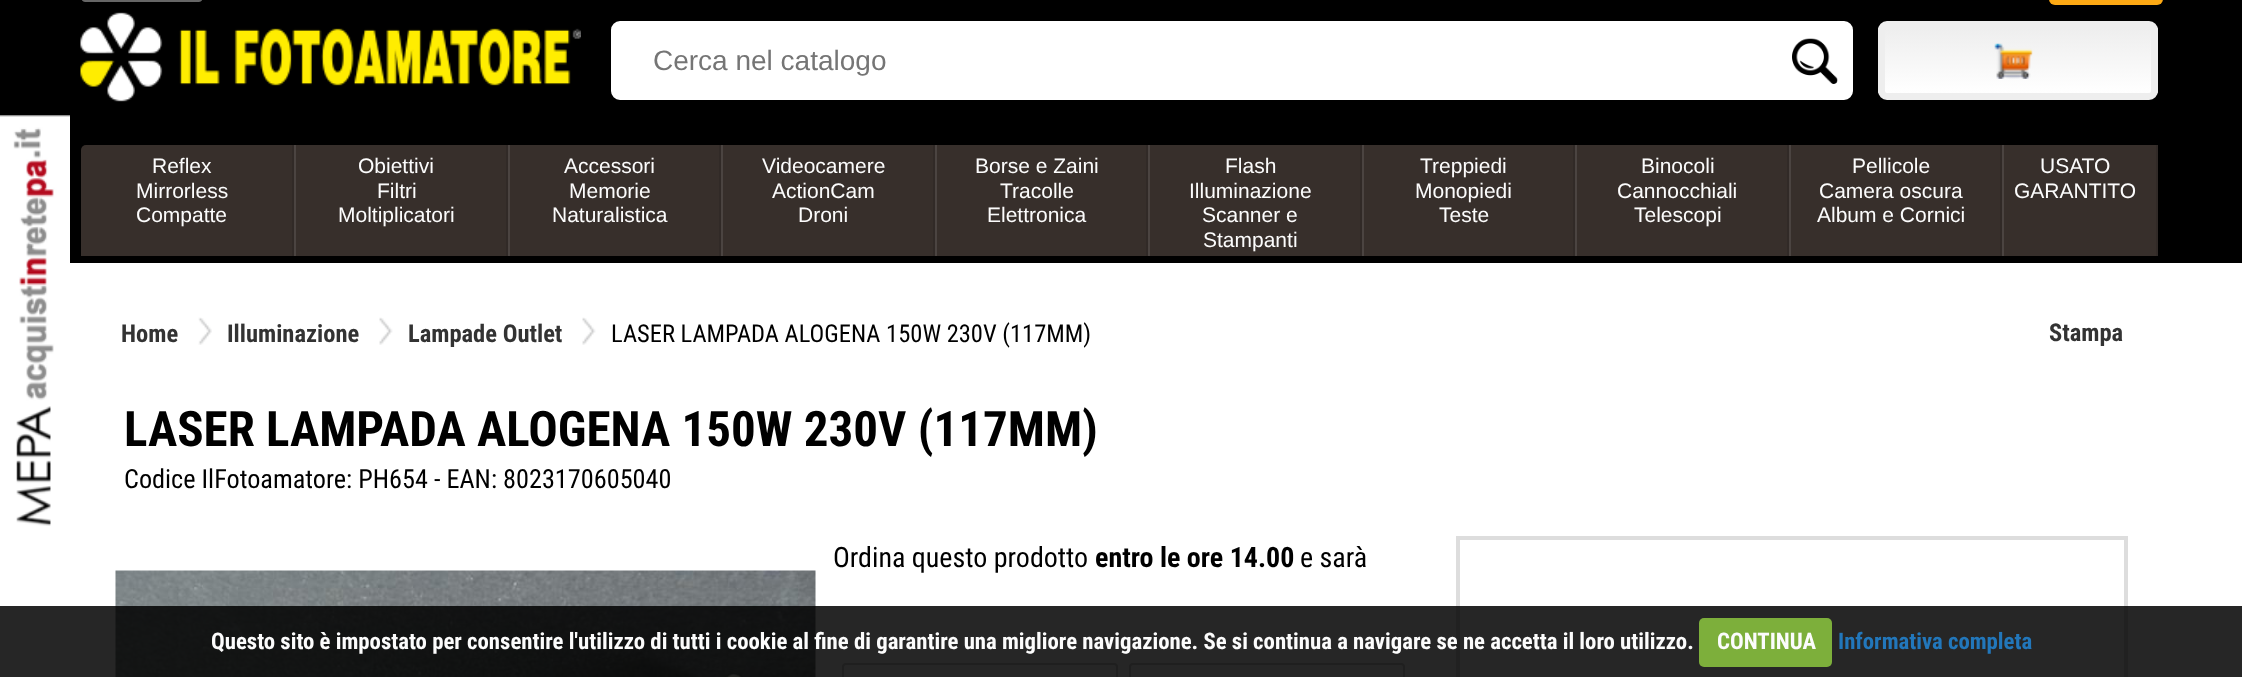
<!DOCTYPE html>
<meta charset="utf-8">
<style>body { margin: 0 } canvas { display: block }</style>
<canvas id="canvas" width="2242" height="677"></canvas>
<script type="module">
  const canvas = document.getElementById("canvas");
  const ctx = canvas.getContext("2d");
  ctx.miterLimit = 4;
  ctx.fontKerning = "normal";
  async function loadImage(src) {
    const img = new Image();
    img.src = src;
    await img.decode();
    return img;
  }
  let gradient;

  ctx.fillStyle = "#ffffff";
  ctx.fillRect(0, 0, 2242, 677);
  ctx.fillStyle = "#000000";
  ctx.fillRect(0, 0, 2242, 263);
  ctx.beginPath();
  ctx.roundRect(82, -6, 120, 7, 4);
  ctx.strokeStyle = "#666666";
  ctx.lineWidth = 2;
  ctx.stroke();
  ctx.fillStyle = "#fda914";
  ctx.beginPath();
  ctx.roundRect(2049, -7, 114, 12, 7);
  ctx.fill();
  ctx.drawImage(await loadImage("img1.png"), 80, 12, 501, 90);
  ctx.fillStyle = "#ffffff";
  ctx.beginPath();
  ctx.roundRect(614.5, 24.5, 1235, 72, 5.5);
  ctx.fill();
  ctx.strokeStyle = "#ffffff";
  ctx.lineWidth = 7;
  ctx.stroke();
  ctx.font = "28px Liberation Sans";
  ctx.fillStyle = "#757575";
  ctx.fillText("Cerca nel catalogo", 653, 70);
  ctx.drawImage(await loadImage("img2.png"), 1792, 38, 46, 46);
  ctx.save();
  ctx.beginPath();
  ctx.roundRect(1878, 21, 280, 79, 9);
  ctx.clip();
  gradient = ctx.createLinearGradient(1885, 28, 1885, 93);
  gradient.addColorStop(0, "#eeeeee");
  gradient.addColorStop(1, "#ffffff");
  ctx.fillStyle = gradient;
  ctx.fillRect(1878, 28, 280, 65);
  ctx.restore();
  ctx.beginPath();
  ctx.roundRect(1881.5, 24.5, 273, 72, 5.5);
  ctx.strokeStyle = "#eeeeee";
  ctx.stroke();
  ctx.drawImage(await loadImage("img3.png"), 1994, 43, 39, 36);
  ctx.drawImage(await loadImage("img4.png"), 0, 115, 70, 411);
  ctx.fillStyle = "#372f2b";
  ctx.beginPath();
  ctx.roundRect(81, 145, 213, 111, [5, 0, 0, 0]);
  ctx.fill();
  ctx.fillStyle = "#312a27";
  ctx.fillRect(292, 145, 2, 111);
  ctx.font = "21px Liberation Sans";
  ctx.fillStyle = "#fcfcfc";
  ctx.fillText("Reflex", 152, 173);
  ctx.fillText("Mirrorless", 136, 198);
  ctx.fillText("Compatte", 136, 222);
  ctx.fillStyle = "#372f2b";
  ctx.fillRect(296, 145, 210, 111);
  ctx.fillStyle = "#312a27";
  ctx.fillRect(506, 145, 2, 111);
  ctx.fillStyle = "#4b4441";
  ctx.fillRect(294, 145, 2, 111);
  ctx.fillStyle = "#fcfcfc";
  ctx.fillText("Obiettivi", 358, 173);
  ctx.fillText("Filtri", 377, 198);
  ctx.fillText("Moltiplicatori", 338, 222);
  ctx.fillStyle = "#372f2b";
  ctx.fillRect(510, 145, 209, 111);
  ctx.fillStyle = "#312a27";
  ctx.fillRect(719, 145, 2, 111);
  ctx.fillStyle = "#4b4441";
  ctx.fillRect(508, 145, 2, 111);
  ctx.fillStyle = "#fcfcfc";
  ctx.fillText("Accessori", 564, 173);
  ctx.fillText("Memorie", 569, 198);
  ctx.fillText("Naturalistica", 552, 222);
  ctx.fillStyle = "#372f2b";
  ctx.fillRect(723, 145, 210, 111);
  ctx.fillStyle = "#312a27";
  ctx.fillRect(933, 145, 2, 111);
  ctx.fillStyle = "#4b4441";
  ctx.fillRect(721, 145, 2, 111);
  ctx.fillStyle = "#fcfcfc";
  ctx.fillText("Videocamere", 762, 173);
  ctx.fillText("ActionCam", 772, 198);
  ctx.fillText("Droni", 798, 222);
  ctx.fillStyle = "#372f2b";
  ctx.fillRect(937, 145, 209, 111);
  ctx.fillStyle = "#312a27";
  ctx.fillRect(1146, 145, 2, 111);
  ctx.fillStyle = "#4b4441";
  ctx.fillRect(935, 145, 2, 111);
  ctx.fillStyle = "#fcfcfc";
  ctx.fillText("Borse e Zaini", 975, 173);
  ctx.fillText("Tracolle", 1000, 198);
  ctx.fillText("Elettronica", 987, 222);
  ctx.fillStyle = "#372f2b";
  ctx.fillRect(1150, 145, 210, 111);
  ctx.fillStyle = "#312a27";
  ctx.fillRect(1360, 145, 2, 111);
  ctx.fillStyle = "#4b4441";
  ctx.fillRect(1148, 145, 2, 111);
  ctx.fillStyle = "#fcfcfc";
  ctx.fillText("Flash", 1225, 173);
  ctx.fillText("Illuminazione", 1189, 198);
  ctx.fillText("Scanner e", 1202, 222);
  ctx.fillText("Stampanti", 1203, 247);
  ctx.fillStyle = "#372f2b";
  ctx.fillRect(1364, 145, 209, 111);
  ctx.fillStyle = "#312a27";
  ctx.fillRect(1573, 145, 2, 111);
  ctx.fillStyle = "#4b4441";
  ctx.fillRect(1362, 145, 2, 111);
  ctx.fillStyle = "#fcfcfc";
  ctx.fillText("Treppiedi", 1420, 173);
  ctx.fillText("Monopiedi", 1415, 198);
  ctx.fillText("Teste", 1439, 222);
  ctx.fillStyle = "#372f2b";
  ctx.fillRect(1577, 145, 210, 111);
  ctx.fillStyle = "#312a27";
  ctx.fillRect(1787, 145, 2, 111);
  ctx.fillStyle = "#4b4441";
  ctx.fillRect(1575, 145, 2, 111);
  ctx.fillStyle = "#fcfcfc";
  ctx.fillText("Binocoli", 1641, 173);
  ctx.fillText("Cannocchiali", 1617, 198);
  ctx.fillText("Telescopi", 1634, 222);
  ctx.fillStyle = "#372f2b";
  ctx.fillRect(1791, 145, 209, 111);
  ctx.fillStyle = "#312a27";
  ctx.fillRect(2000, 145, 2, 111);
  ctx.fillStyle = "#4b4441";
  ctx.fillRect(1789, 145, 2, 111);
  ctx.fillStyle = "#fcfcfc";
  ctx.fillText("Pellicole", 1852, 173);
  ctx.fillText("Camera oscura", 1819, 198);
  ctx.fillText("Album e Cornici", 1817, 222);
  ctx.fillStyle = "#372f2b";
  ctx.fillRect(2004, 145, 152, 111);
  ctx.fillStyle = "#312a27";
  ctx.fillRect(2156, 145, 2, 111);
  ctx.fillStyle = "#4b4441";
  ctx.fillRect(2002, 145, 2, 111);
  ctx.fillStyle = "#fcfcfc";
  ctx.fillText("USATO", 2040, 173);
  ctx.fillText("GARANTITO", 2014, 198);
  ctx.font = "bold 24.5px Roboto Condensed";
  ctx.fillStyle = "#333333";
  ctx.fillText("Home", 121, 342);
  ctx.drawImage(await loadImage("img5.png"), 198, 317, 14, 28);
  ctx.fillText("Illuminazione", 227, 342);
  ctx.drawImage(await loadImage("img6.png"), 379, 317, 14, 28);
  ctx.fillText("Lampade Outlet", 408, 342);
  ctx.drawImage(await loadImage("img6.png"), 582, 317, 14, 28);
  ctx.font = "24.5px Roboto Condensed";
  ctx.fillStyle = "#000000";
  ctx.fillText("LASER LAMPADA ALOGENA 150W 230V (117MM)", 611, 342);
  ctx.font = "bold 24.5px Roboto Condensed";
  ctx.fillStyle = "#333333";
  ctx.fillText("Stampa", 2049, 341);
  ctx.font = "bold 49px Roboto Condensed";
  ctx.fillStyle = "#000000";
  ctx.fillText("LASER LAMPADA ALOGENA 150W 230V (117MM)", 124, 446);
  ctx.font = "26.25px Roboto Condensed";
  ctx.fillText("Codice IlFotoamatore: PH654 - EAN: 8023170605040", 124, 488);
  ctx.font = "28px Roboto Condensed";
  ctx.fillText("Ordina questo prodotto", 833, 567);
  ctx.font = "bold 28px Roboto Condensed";
  ctx.fillText("entro le ore 14.00", 1095, 567);
  ctx.font = "28px Roboto Condensed";
  ctx.fillText("e sarà", 1300, 567);
  ctx.beginPath();
  ctx.roundRect(843, 664, 274, 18, 3);
  ctx.strokeStyle = "#cccccc";
  ctx.lineWidth = 2;
  ctx.stroke();
  ctx.beginPath();
  ctx.roundRect(1130, 664, 274, 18, 3);
  ctx.stroke();
  ctx.strokeStyle = "#dddddd";
  ctx.lineWidth = 4;
  ctx.strokeRect(1458, 538, 668, 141);
  ctx.drawImage(await loadImage("img7.png"), 115, 570, 701, 107);
  ctx.fillStyle = "rgba(0, 0, 0, 0.85)";
  ctx.fillRect(0, 606, 2242, 71);
  ctx.font = "bold 22.75px Roboto Condensed";
  ctx.fillStyle = "#fcfcfc";
  ctx.fillText("Questo sito è impostato per consentire l'utilizzo di tutti i cookie al fine di garantire una migliore navigazione. Se si continua a navigare se ne accetta il loro utilizzo.", 211, 649);
  ctx.fillStyle = "#7daf3b";
  ctx.beginPath();
  ctx.roundRect(1699, 618, 133, 49, 5);
  ctx.fill();
  ctx.fillStyle = "#fcfcfc";
  ctx.fillText("CONTINUA", 1717, 649);
  ctx.fillStyle = "#2277bb";
  ctx.fillText("Informativa completa", 1838, 649);
</script>
